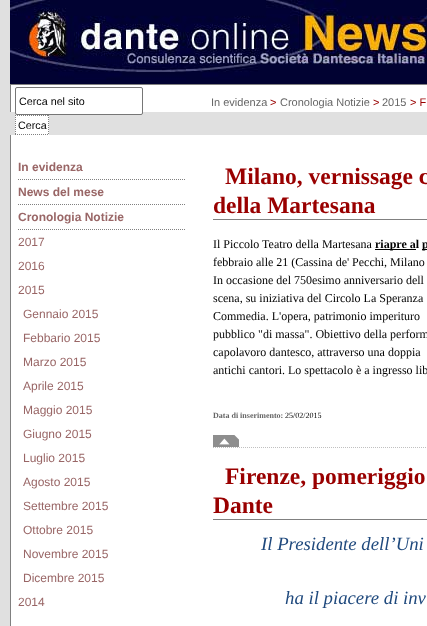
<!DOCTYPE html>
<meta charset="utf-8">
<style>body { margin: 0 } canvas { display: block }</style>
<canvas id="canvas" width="427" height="626"></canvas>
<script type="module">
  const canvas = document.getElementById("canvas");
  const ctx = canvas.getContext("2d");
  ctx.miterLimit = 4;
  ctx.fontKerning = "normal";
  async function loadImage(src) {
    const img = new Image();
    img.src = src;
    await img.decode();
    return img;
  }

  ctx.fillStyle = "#e0e0e0";
  ctx.fillRect(0, 0, 427, 626);
  ctx.drawImage(await loadImage("img1.png"), 10, 0, 417, 84);
  ctx.fillStyle = "#ffffff";
  ctx.fillRect(11, 85, 416, 27);
  ctx.fillStyle = "#808080";
  ctx.fillRect(10, 84, 417, 1);
  ctx.fillRect(10, 84, 1, 28);
  ctx.fillStyle = "#ffffff";
  ctx.beginPath();
  ctx.roundRect(15.5, 87.5, 127, 27, 1.5);
  ctx.fill();
  ctx.strokeStyle = "#767676";
  ctx.stroke();
  ctx.font = "10.75px Liberation Sans";
  ctx.fillStyle = "#000000";
  ctx.fillText("Cerca nel sito", 19, 105);
  ctx.fillStyle = "#ffffff";
  ctx.fillRect(15, 115, 34, 20);
  ctx.beginPath();
  ctx.moveTo(15, 115.5);
  ctx.lineTo(49, 115.5);
  ctx.moveTo(48.5, 115);
  ctx.lineTo(48.5, 135);
  ctx.moveTo(15, 134.5);
  ctx.lineTo(49, 134.5);
  ctx.moveTo(15.5, 115);
  ctx.lineTo(15.5, 135);
  ctx.strokeStyle = "#808080";
  ctx.setLineDash([1, 1]);
  ctx.stroke();
  ctx.fillStyle = "#000000";
  ctx.fillText("Cerca", 18, 129);
  ctx.font = "11px Liberation Sans";
  ctx.fillStyle = "#666666";
  ctx.fillText("In evidenza", 211, 106);
  ctx.fillStyle = "#990000";
  ctx.fillText(">", 270, 106);
  ctx.fillStyle = "#666666";
  ctx.fillText("Cronologia Notizie", 280, 106);
  ctx.fillStyle = "#990000";
  ctx.fillText(">", 373, 106);
  ctx.fillStyle = "#666666";
  ctx.fillText("2015", 382, 106);
  ctx.fillStyle = "#990000";
  ctx.fillText("> F", 410, 106);
  ctx.fillStyle = "#ffffff";
  ctx.fillRect(11, 135, 416, 491);
  ctx.fillStyle = "#808080";
  ctx.fillRect(10, 135, 1, 491);
  ctx.beginPath();
  ctx.moveTo(18, 179.5);
  ctx.lineTo(185, 179.5);
  ctx.stroke();
  ctx.font = "bold 12px Liberation Sans";
  ctx.fillStyle = "#996666";
  ctx.fillText("In evidenza", 18, 171);
  ctx.beginPath();
  ctx.moveTo(18, 204.5);
  ctx.lineTo(185, 204.5);
  ctx.stroke();
  ctx.fillText("News del mese", 18, 196);
  ctx.beginPath();
  ctx.moveTo(18, 229.5);
  ctx.lineTo(185, 229.5);
  ctx.stroke();
  ctx.fillText("Cronologia Notizie", 18, 221);
  ctx.font = "12px Liberation Sans";
  ctx.fillText("2017", 18, 246);
  ctx.fillText("2016", 18, 270);
  ctx.fillText("2015", 18, 294);
  ctx.fillText("Gennaio 2015", 23, 318);
  ctx.fillText("Febbario 2015", 23, 342);
  ctx.fillText("Marzo 2015", 23, 366);
  ctx.fillText("Aprile 2015", 23, 390);
  ctx.fillText("Maggio 2015", 23, 414);
  ctx.fillText("Giugno 2015", 23, 438);
  ctx.fillText("Luglio 2015", 23, 462);
  ctx.fillText("Agosto 2015", 23, 486);
  ctx.fillText("Settembre 2015", 23, 510);
  ctx.fillText("Ottobre 2015", 23, 534);
  ctx.fillText("Novembre 2015", 23, 558);
  ctx.fillText("Dicembre 2015", 23, 582);
  ctx.fillText("2014", 18, 606);
  ctx.fillStyle = "#808080";
  ctx.fillRect(213, 219, 214, 1);
  ctx.font = "bold 23.5px Liberation Serif";
  ctx.fillStyle = "#990000";
  ctx.fillText("Milano, vernissage c", 225, 184);
  ctx.fillText("della Martesana", 213, 213);
  ctx.font = "12px Liberation Serif";
  ctx.fillStyle = "#000000";
  ctx.fillText("Il Piccolo Teatro della Martesana", 213, 248);
  ctx.fillRect(375, 249, 41, 1);
  ctx.font = "bold 12px Liberation Serif";
  ctx.fillText("riapre al", 375, 248);
  ctx.fillRect(422, 249, 5, 1);
  ctx.fillText("p", 422, 248);
  ctx.font = "12px Liberation Serif";
  ctx.fillText("febbraio alle 21 (Cassina de' Pecchi, Milano", 213, 266);
  ctx.fillText("In occasione del 750esimo anniversario dell", 213, 284);
  ctx.fillText("scena, su iniziativa del Circolo La Speranza", 213, 302);
  ctx.fillText("Commedia. L'opera, patrimonio imperituro", 213, 320);
  ctx.fillText("pubblico \"di massa\". Obiettivo della perform", 213, 338);
  ctx.fillText("capolavoro dantesco, attraverso una doppia", 213, 356);
  ctx.fillText("antichi cantori. Lo spettacolo è a ingresso lib", 213, 374);
  ctx.font = "bold 8px Liberation Serif";
  ctx.fillStyle = "#666666";
  ctx.fillText("Data di inserimento:", 213, 418);
  ctx.font = "8px Liberation Serif";
  ctx.fillStyle = "#000000";
  ctx.fillText("25/02/2015", 285, 418);
  ctx.beginPath();
  ctx.moveTo(213, 447.5);
  ctx.lineTo(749, 447.5);
  ctx.strokeStyle = "#c0c0c0";
  ctx.stroke();
  ctx.drawImage(await loadImage("img2.png"), 213, 435, 26, 12);
  ctx.fillStyle = "#808080";
  ctx.fillRect(213, 519, 214, 1);
  ctx.font = "bold 23.5px Liberation Serif";
  ctx.fillStyle = "#990000";
  ctx.fillText("Firenze, pomeriggio", 225, 484);
  ctx.fillText("Dante", 213, 513);
  ctx.font = "italic 18.75px Liberation Serif";
  ctx.fillStyle = "#1f497d";
  ctx.fillText("Il Presidente dell’Uni", 261, 550);
  ctx.fillText("ha il piacere di inv", 285, 604);
</script>
